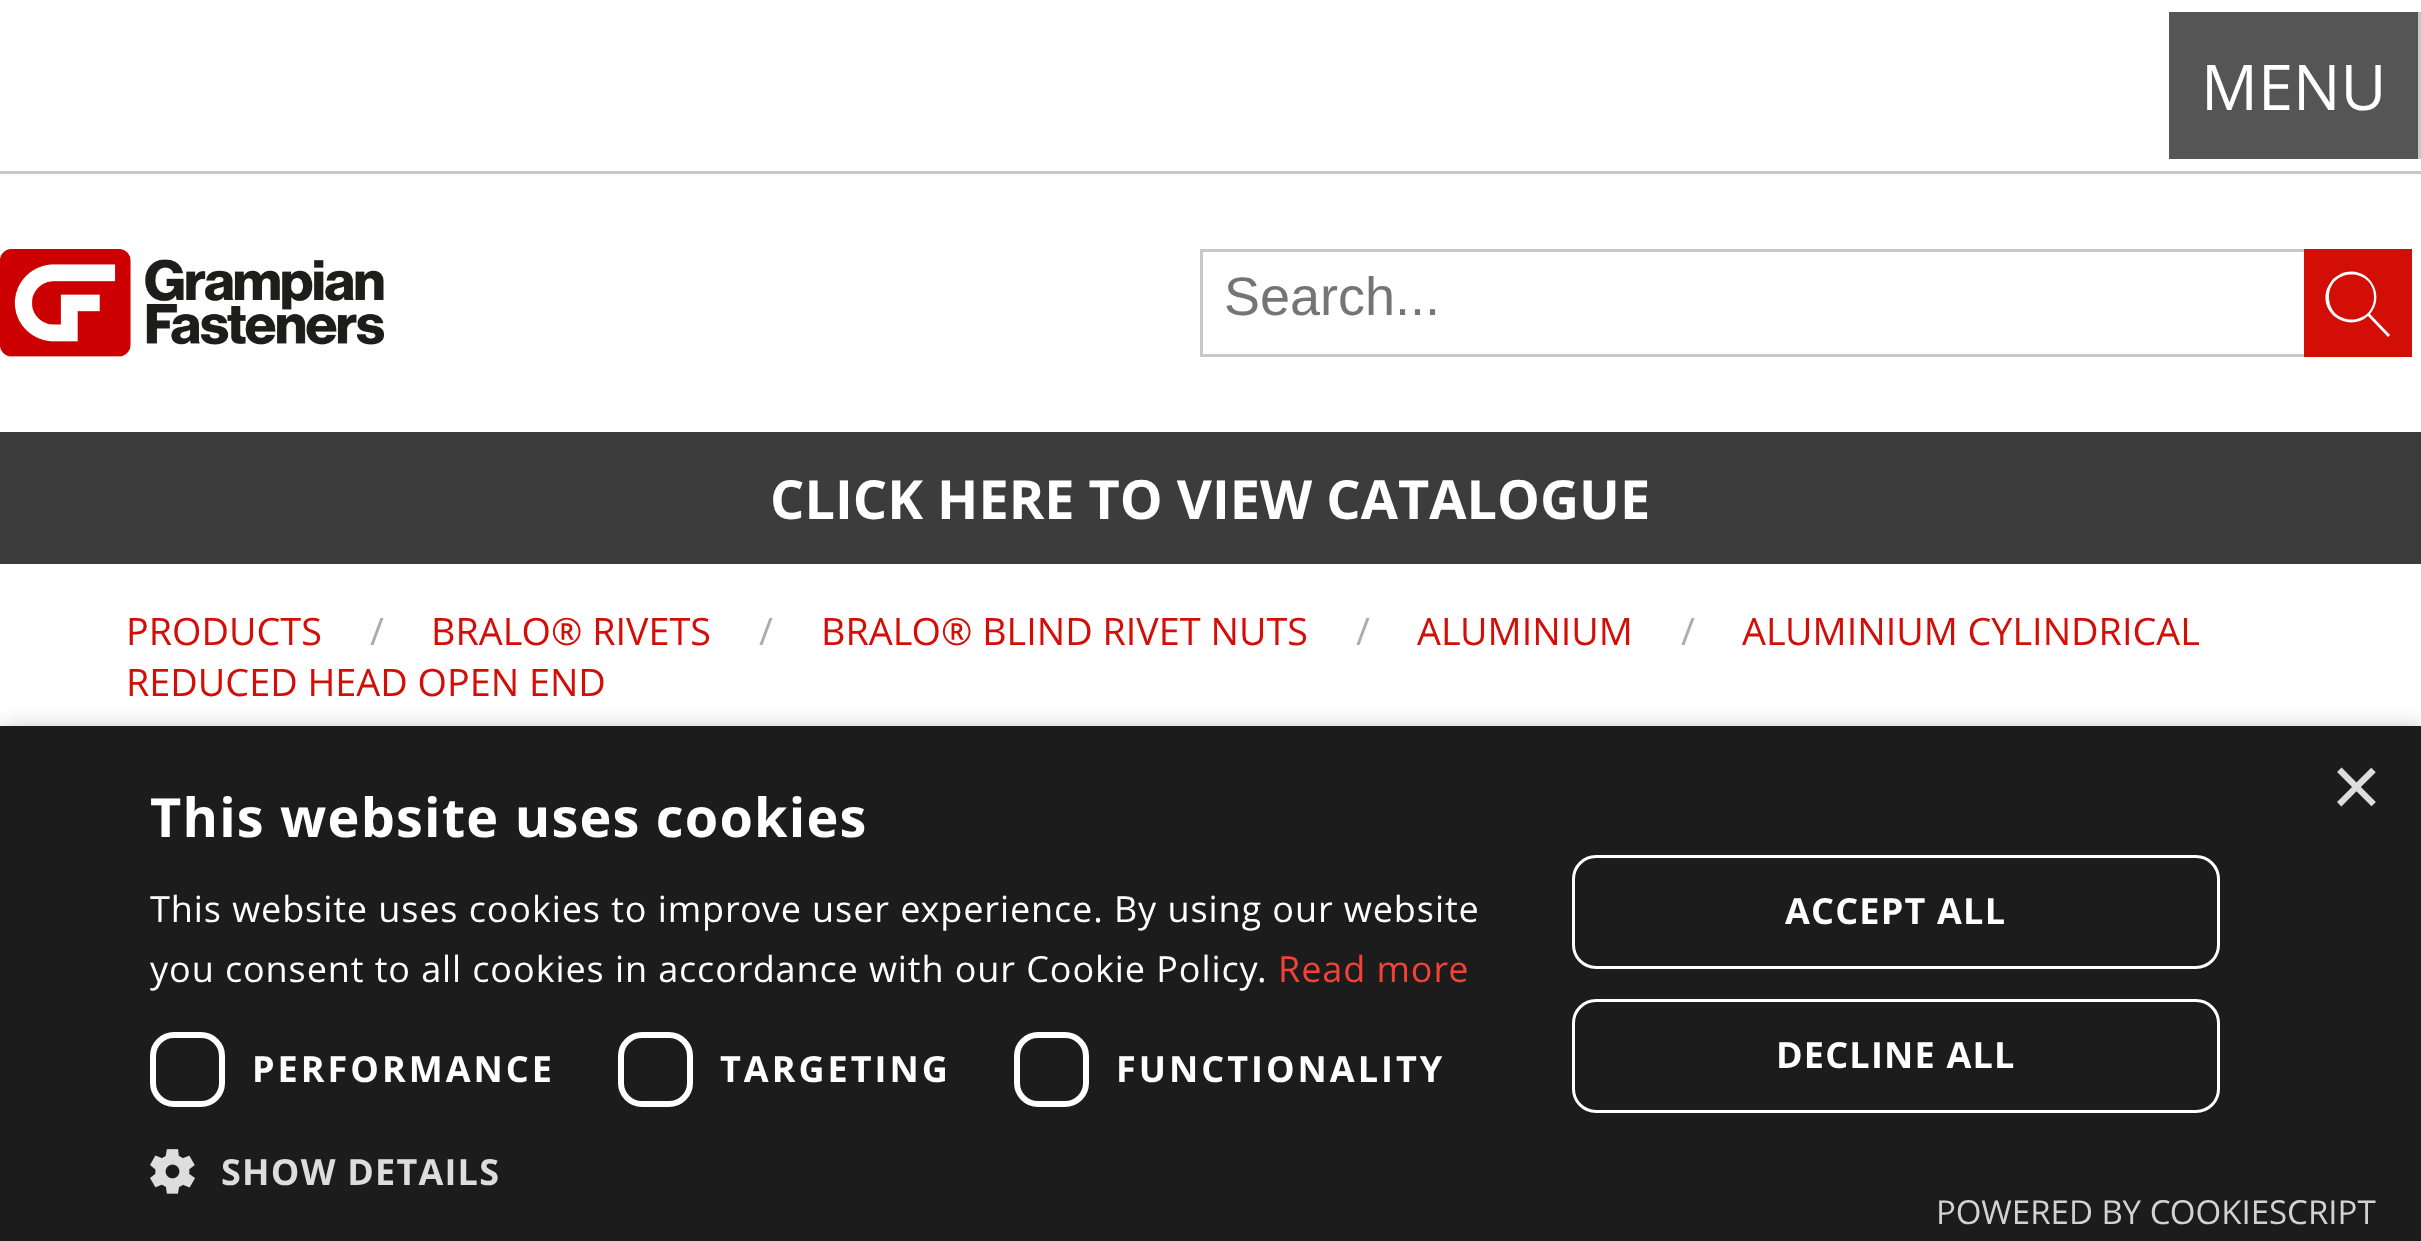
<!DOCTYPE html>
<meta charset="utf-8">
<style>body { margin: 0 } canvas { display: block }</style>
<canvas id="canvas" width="2421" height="1241"></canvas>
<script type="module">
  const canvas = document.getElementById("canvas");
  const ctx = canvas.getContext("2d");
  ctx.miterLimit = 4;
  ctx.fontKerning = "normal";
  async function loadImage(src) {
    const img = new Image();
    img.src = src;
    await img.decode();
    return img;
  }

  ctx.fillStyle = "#ffffff";
  ctx.fillRect(0, 0, 2421, 1241);
  ctx.fillStyle = "#c8c8c8";
  ctx.fillRect(0, 171, 2421, 3);
  ctx.fillStyle = "#555555";
  ctx.fillRect(2169, 12, 249, 147);
  ctx.fillStyle = "#c8c8c8";
  ctx.fillRect(2418, 12, 3, 147);
  ctx.font = "63px Open Sans";
  ctx.fillStyle = "#ffffff";
  ctx.fillText("MENU", 2201, 110);
  ctx.drawImage(await loadImage("img1.png"), 0, 249, 384, 108);
  ctx.fillStyle = "#c8c8c8";
  ctx.fillRect(1200, 249, 1104, 3);
  ctx.fillRect(1200, 354, 1104, 3);
  ctx.fillRect(1200, 249, 3, 108);
  ctx.font = "54px Liberation Sans";
  ctx.fillStyle = "#757575";
  ctx.fillText("Search...", 1224, 315);
  ctx.fillStyle = "#d30e07";
  ctx.fillRect(2304, 249, 108, 108);
  ctx.fillStyle = "#ffffff";
  ctx.beginPath();
  ctx.moveTo(2374, 297);
  ctx.bezierCurveTo(2374, 267, 2329, 267, 2329, 297);
  ctx.bezierCurveTo(2329, 327, 2374, 327, 2374, 297);
  ctx.closePath();
  ctx.moveTo(2390, 335);
  ctx.lineTo(2388, 337);
  ctx.lineTo(2368, 316);
  ctx.bezierCurveTo(2350, 332, 2321, 316, 2326, 292);
  ctx.bezierCurveTo(2327, 287, 2330, 283, 2333, 279);
  ctx.bezierCurveTo(2337, 276, 2341, 273, 2346, 272);
  ctx.bezierCurveTo(2370, 267, 2386, 296, 2370, 314);
  ctx.closePath();
  ctx.fill("evenodd");
  ctx.fillStyle = "#3c3c3c";
  ctx.fillRect(0, 432, 2421, 132);
  ctx.font = "bold 54px Open Sans";
  ctx.fillStyle = "#ffffff";
  ctx.fillText("CLICK HERE TO VIEW CATALOGUE", 770, 519);
  ctx.font = "37.75px Open Sans";
  ctx.fillStyle = "#d30e07";
  ctx.fillText("PRODUCTS", 126, 645);
  ctx.fillStyle = "#afaaaf";
  ctx.fillText("/", 370, 645);
  ctx.fillStyle = "#d30e07";
  ctx.fillText("BRALO® RIVETS", 431, 645);
  ctx.fillStyle = "#afaaaf";
  ctx.fillText("/", 759, 645);
  ctx.fillStyle = "#d30e07";
  ctx.fillText("BRALO® BLIND RIVET NUTS", 821, 645);
  ctx.fillStyle = "#afaaaf";
  ctx.fillText("/", 1356, 645);
  ctx.fillStyle = "#d30e07";
  ctx.fillText("ALUMINIUM", 1417, 645);
  ctx.fillStyle = "#afaaaf";
  ctx.fillText("/", 1681, 645);
  ctx.fillStyle = "#d30e07";
  ctx.fillText("ALUMINIUM CYLINDRICAL", 1742, 645);
  ctx.fillText("REDUCED HEAD OPEN END", 126, 696);
  ctx.fillStyle = "rgba(0, 0, 0, 0.35)";
  ctx.filter = "blur(12px)";
  ctx.beginPath();
  ctx.rect(3, 732, 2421, 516);
  ctx.fill();
  ctx.filter = "none";
  ctx.fillStyle = "#1c1c1c";
  ctx.fillRect(0, 726, 2421, 515);
  ctx.font = "87px Liberation Sans";
  ctx.fillStyle = "#dddddd";
  ctx.fillText("×", 2331, 816);
  ctx.letterSpacing = "1.2px";
  ctx.font = "bold 54px Open Sans";
  ctx.fillStyle = "#ffffff";
  ctx.fillText("This website uses cookies", 150, 837);
  ctx.letterSpacing = "0.9px";
  ctx.font = "36px Open Sans";
  ctx.fillText("This website uses cookies to improve user experience. By using our website", 150, 922);
  ctx.fillText("you consent to all cookies in accordance with our Cookie Policy.", 150, 982);
  ctx.fillStyle = "#f44336";
  ctx.fillText("Read more", 1278, 982);
  ctx.beginPath();
  ctx.roundRect(153, 1035, 69, 69, 21);
  ctx.strokeStyle = "#ffffff";
  ctx.lineWidth = 6;
  ctx.stroke();
  ctx.letterSpacing = "3px";
  ctx.font = "bold 36px Open Sans";
  ctx.fillStyle = "#ffffff";
  ctx.fillText("PERFORMANCE", 252, 1082);
  ctx.beginPath();
  ctx.roundRect(621, 1035, 69, 69, 21);
  ctx.stroke();
  ctx.fillText("TARGETING", 720, 1082);
  ctx.beginPath();
  ctx.roundRect(1017, 1035, 69, 69, 21);
  ctx.stroke();
  ctx.fillText("FUNCTIONALITY", 1116, 1082);
  ctx.drawImage(await loadImage("img2.png"), 150, 1149, 45, 45);
  ctx.letterSpacing = "1.2px";
  ctx.fillStyle = "#dddddd";
  ctx.fillText("SHOW DETAILS", 221, 1185);
  ctx.beginPath();
  ctx.roundRect(1573.5, 856.5, 645, 111, 22.5);
  ctx.lineWidth = 3;
  ctx.stroke();
  ctx.fillStyle = "#ffffff";
  ctx.fillText("ACCEPT ALL", 1785, 924);
  ctx.beginPath();
  ctx.roundRect(1573.5, 1000.5, 645, 111, 22.5);
  ctx.stroke();
  ctx.fillText("DECLINE ALL", 1776, 1068);
  ctx.letterSpacing = "0px";
  ctx.font = "33px Open Sans";
  ctx.fillStyle = "#d2d2d2";
  ctx.fillText("POWERED BY COOKIESCRIPT", 1936, 1224);
</script>
